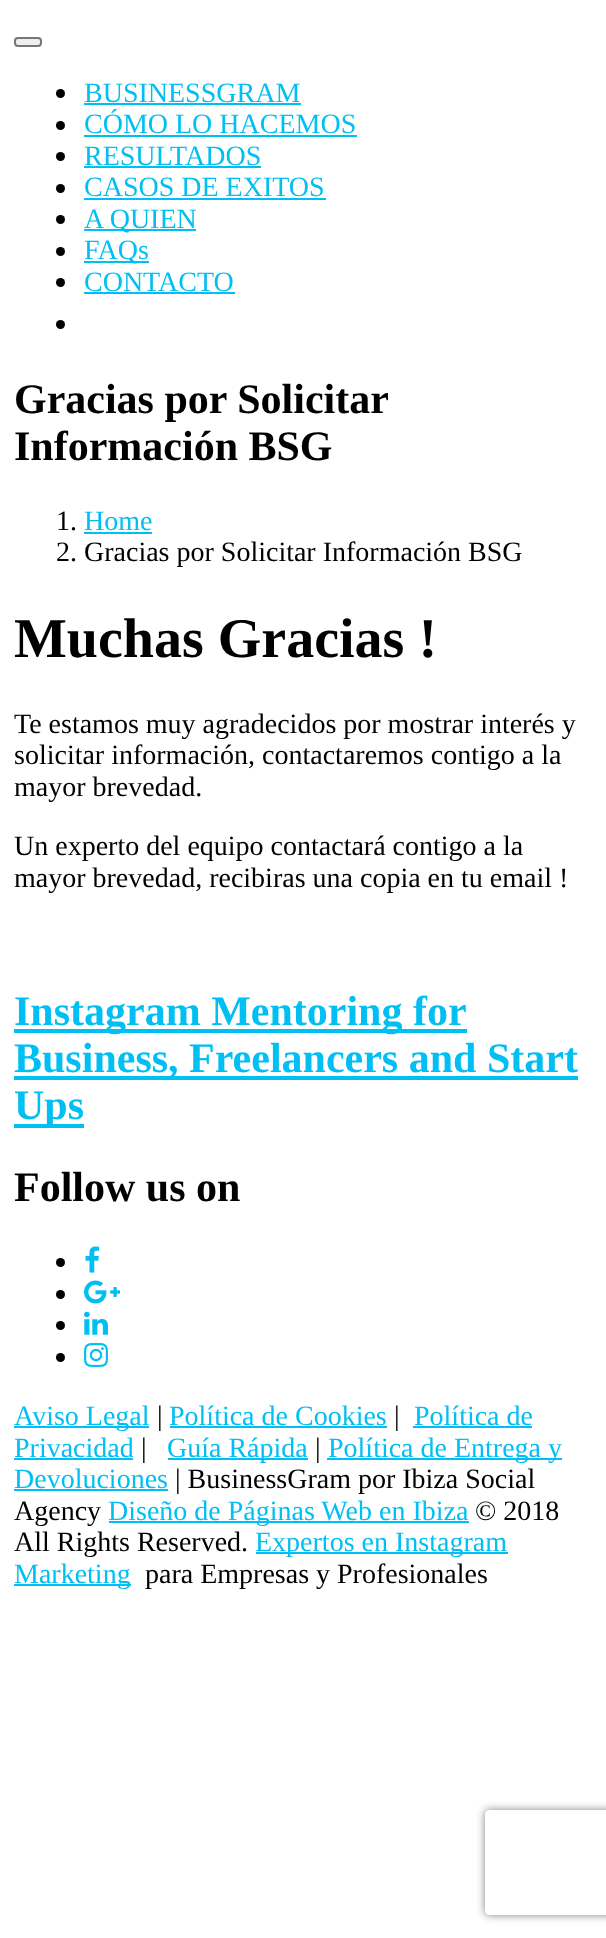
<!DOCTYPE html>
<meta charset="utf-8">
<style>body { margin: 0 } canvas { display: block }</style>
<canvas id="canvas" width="606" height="1938"></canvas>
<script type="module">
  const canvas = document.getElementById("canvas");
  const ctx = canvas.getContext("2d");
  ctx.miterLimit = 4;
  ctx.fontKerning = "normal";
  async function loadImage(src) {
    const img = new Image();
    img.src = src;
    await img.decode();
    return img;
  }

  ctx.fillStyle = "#ffffff";
  ctx.fillRect(0, 0, 606, 1938);
  ctx.fillStyle = "#efefef";
  ctx.beginPath();
  ctx.roundRect(15, 38, 26, 8, 3);
  ctx.fill();
  ctx.strokeStyle = "#767676";
  ctx.lineWidth = 2;
  ctx.stroke();
  ctx.fillStyle = "#000000";
  ctx.beginPath();
  ctx.arc(60.5, 93.5, 4.5, 0, Math.PI * 2);
  ctx.fill();
  ctx.font = "28px Liberation Serif";
  ctx.fillStyle = "#00bff3";
  ctx.fillText("BUSINESSGRAM", 84, 102);
  ctx.fillRect(84, 103, 217, 2);
  ctx.fillStyle = "#000000";
  ctx.beginPath();
  ctx.arc(60.5, 125.5, 4.5, 0, Math.PI * 2);
  ctx.fill();
  ctx.fillStyle = "#00bff3";
  ctx.fillText("CÓMO LO HACEMOS", 84, 133);
  ctx.fillRect(84, 135, 273, 2);
  ctx.fillStyle = "#000000";
  ctx.beginPath();
  ctx.arc(60.5, 156.5, 4.5, 0, Math.PI * 2);
  ctx.fill();
  ctx.fillStyle = "#00bff3";
  ctx.fillText("RESULTADOS", 84, 165);
  ctx.fillRect(84, 166, 177, 2);
  ctx.fillStyle = "#000000";
  ctx.beginPath();
  ctx.arc(60.5, 188.5, 4.5, 0, Math.PI * 2);
  ctx.fill();
  ctx.fillStyle = "#00bff3";
  ctx.fillText("CASOS DE EXITOS", 84, 196);
  ctx.fillRect(84, 198, 242, 2);
  ctx.fillStyle = "#000000";
  ctx.beginPath();
  ctx.arc(60.5, 219.5, 4.5, 0, Math.PI * 2);
  ctx.fill();
  ctx.fillStyle = "#00bff3";
  ctx.fillRect(84, 229, 112, 2);
  ctx.fillText("A QUIEN", 84, 228);
  ctx.fillStyle = "#000000";
  ctx.beginPath();
  ctx.arc(60.5, 251.5, 4.5, 0, Math.PI * 2);
  ctx.fill();
  ctx.fillStyle = "#00bff3";
  ctx.fillRect(84, 261, 65, 2);
  ctx.fillText("FAQs", 84, 259);
  ctx.fillStyle = "#000000";
  ctx.beginPath();
  ctx.arc(60.5, 282.5, 4.5, 0, Math.PI * 2);
  ctx.fill();
  ctx.fillStyle = "#00bff3";
  ctx.fillText("CONTACTO", 84, 291);
  ctx.fillRect(84, 292, 151, 2);
  ctx.fillStyle = "#000000";
  ctx.beginPath();
  ctx.arc(60.5, 324.5, 4.5, 0, Math.PI * 2);
  ctx.fill();
  ctx.font = "bold 42px Liberation Serif";
  ctx.fillText("Gracias por Solicitar", 14, 413);
  ctx.fillText("Información BSG", 14, 460);
  ctx.font = "28px Liberation Serif";
  ctx.fillText("1.", 56, 530);
  ctx.fillStyle = "#00bff3";
  ctx.fillText("Home", 84, 530);
  ctx.fillRect(84, 532, 68, 2);
  ctx.fillStyle = "#000000";
  ctx.fillText("2. Gracias por Solicitar Información BSG", 56, 561);
  ctx.font = "bold 56px Liberation Serif";
  ctx.fillText("Muchas Gracias !", 14, 657);
  ctx.font = "28px Liberation Serif";
  ctx.fillText("Te estamos muy agradecidos por mostrar interés y", 14, 733);
  ctx.fillText("solicitar información, contactaremos contigo a la", 14, 764);
  ctx.fillText("mayor brevedad.", 14, 796);
  ctx.fillText("Un experto del equipo contactará contigo a la", 14, 855);
  ctx.fillText("mayor brevedad, recibiras una copia en tu email !", 14, 887);
  ctx.fillStyle = "#00bff3";
  ctx.fillRect(14, 1029, 453, 4);
  ctx.font = "bold 42px Liberation Serif";
  ctx.fillText("Instagram Mentoring for", 14, 1025);
  ctx.fillRect(14, 1076, 564, 4);
  ctx.fillText("Business, Freelancers and Start", 14, 1072);
  ctx.fillRect(14, 1124, 70, 4);
  ctx.fillText("Ups", 14, 1119);
  ctx.fillStyle = "#000000";
  ctx.fillText("Follow us on", 14, 1201);
  ctx.beginPath();
  ctx.arc(60.5, 1262.5, 4.5, 0, Math.PI * 2);
  ctx.fill();
  ctx.drawImage(await loadImage("img1.png"), 85, 1246, 14, 27);
  ctx.beginPath();
  ctx.arc(60.5, 1294.5, 4.5, 0, Math.PI * 2);
  ctx.fill();
  ctx.drawImage(await loadImage("img2.png"), 84, 1280, 36, 24);
  ctx.beginPath();
  ctx.arc(60.5, 1325.5, 4.5, 0, Math.PI * 2);
  ctx.fill();
  ctx.drawImage(await loadImage("img3.png"), 84, 1311, 24, 24);
  ctx.beginPath();
  ctx.arc(60.5, 1357.5, 4.5, 0, Math.PI * 2);
  ctx.fill();
  ctx.drawImage(await loadImage("img4.png"), 84, 1343, 24, 24);
  ctx.fillStyle = "#00bff3";
  ctx.fillRect(14, 1426, 135, 2);
  ctx.font = "28px Liberation Serif";
  ctx.fillText("Aviso Legal", 14, 1425);
  ctx.fillStyle = "#000000";
  ctx.fillText("|", 157, 1425);
  ctx.fillStyle = "#00bff3";
  ctx.fillText("Política de Cookies", 169, 1425);
  ctx.fillRect(170, 1426, 217, 2);
  ctx.fillStyle = "#000000";
  ctx.fillText("|", 394, 1425);
  ctx.fillStyle = "#00bff3";
  ctx.fillText("Política de", 414, 1425);
  ctx.fillRect(413, 1426, 119, 2);
  ctx.fillText("Privacidad", 14, 1457);
  ctx.fillRect(14, 1458, 119, 2);
  ctx.fillStyle = "#000000";
  ctx.fillText("|", 141, 1457);
  ctx.fillStyle = "#00bff3";
  ctx.fillRect(168, 1458, 140, 2);
  ctx.fillText("Guía Rápida", 167, 1457);
  ctx.fillStyle = "#000000";
  ctx.fillText("|", 315, 1457);
  ctx.fillStyle = "#00bff3";
  ctx.fillRect(327, 1458, 235, 2);
  ctx.fillText("Política de Entrega y", 328, 1457);
  ctx.fillText("Devoluciones", 14, 1488);
  ctx.fillRect(14, 1489, 154, 2);
  ctx.fillStyle = "#000000";
  ctx.fillText("| BusinessGram por Ibiza Social", 175, 1488);
  ctx.fillText("Agency", 14, 1520);
  ctx.fillStyle = "#00bff3";
  ctx.fillRect(109, 1521, 360, 2);
  ctx.fillText("Diseño de Páginas Web en Ibiza", 108, 1520);
  ctx.fillStyle = "#000000";
  ctx.fillText("© 2018", 475, 1520);
  ctx.fillText("All Rights Reserved.", 14, 1551);
  ctx.fillStyle = "#00bff3";
  ctx.fillRect(256, 1552, 252, 2);
  ctx.fillText("Expertos en Instagram", 255, 1551);
  ctx.fillRect(14, 1584, 117, 2);
  ctx.fillText("Marketing", 14, 1583);
  ctx.fillStyle = "#000000";
  ctx.fillText("para Empresas y Profesionales", 145, 1583);
  ctx.save();
  ctx.beginPath();
  ctx.moveTo(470, 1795);
  ctx.lineTo(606, 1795);
  ctx.lineTo(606, 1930);
  ctx.lineTo(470, 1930);
  ctx.closePath();
  ctx.moveTo(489, 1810);
  ctx.lineTo(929, 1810);
  ctx.bezierCurveTo(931, 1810, 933, 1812, 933, 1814);
  ctx.lineTo(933, 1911);
  ctx.bezierCurveTo(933, 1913, 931, 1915, 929, 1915);
  ctx.lineTo(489, 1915);
  ctx.bezierCurveTo(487, 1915, 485, 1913, 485, 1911);
  ctx.lineTo(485, 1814);
  ctx.bezierCurveTo(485, 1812, 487, 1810, 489, 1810);
  ctx.closePath();
  ctx.clip("evenodd");
  ctx.fillStyle = "#808080";
  ctx.filter = "blur(4.5px)";
  ctx.beginPath();
  ctx.roundRect(485, 1810, 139, 105, 4);
  ctx.fill();
  ctx.filter = "none";
  ctx.restore();
</script>
